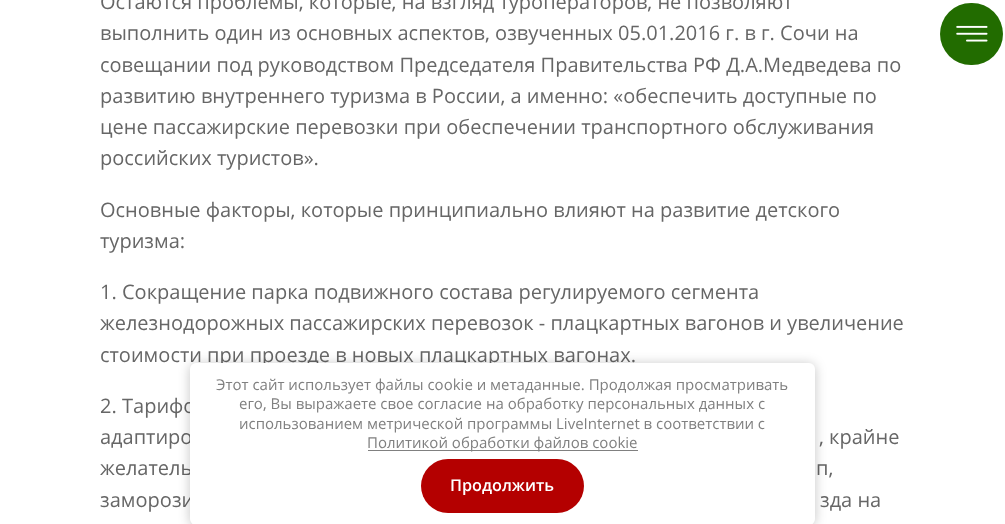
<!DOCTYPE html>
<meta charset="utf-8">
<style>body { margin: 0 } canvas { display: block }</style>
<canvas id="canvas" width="1005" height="524"></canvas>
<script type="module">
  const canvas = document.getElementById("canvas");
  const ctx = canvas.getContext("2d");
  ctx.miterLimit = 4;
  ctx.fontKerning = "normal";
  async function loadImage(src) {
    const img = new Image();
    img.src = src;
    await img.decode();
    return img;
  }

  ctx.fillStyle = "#ffffff";
  ctx.fillRect(0, 0, 1005, 524);
  ctx.font = "20px Open Sans";
  ctx.fillStyle = "#666666";
  ctx.fillText("Остаются проблемы, которые, на взгляд туроператоров, не позволяют", 100, 9);
  ctx.fillText("выполнить один из основных аспектов, озвученных 05.01.2016 г. в г. Сочи на", 100, 40);
  ctx.fillText("совещании под руководством Председателя Правительства РФ Д.А.Медведева по", 100, 72);
  ctx.fillText("развитию внутреннего туризма в России, а именно: «обеспечить доступные по", 100, 103);
  ctx.fillText("цене пассажирские перевозки при обеспечении транспортного обслуживания", 100, 134);
  ctx.fillText("российских туристов».", 100, 165);
  ctx.fillText("Основные факторы, которые принципиально влияют на развитие детского", 100, 217);
  ctx.fillText("туризма:", 100, 248);
  ctx.fillText("1. Сокращение парка подвижного состава регулируемого сегмента", 100, 299);
  ctx.fillText("железнодорожных пассажирских перевозок - плацкартных вагонов и увеличение", 100, 330);
  ctx.fillText("стоимости при проезде в новых плацкартных вагонах.", 100, 362);
  ctx.fillText("2. Тарифо", 100, 413);
  ctx.fillText("адаптиро", 100, 444);
  ctx.fillText(", крайне", 819, 444);
  ctx.fillText("желатель", 100, 475);
  ctx.fillText("п,", 816, 475);
  ctx.fillText("заморози", 100, 507);
  ctx.fillText("зда на", 820, 507);
  ctx.fillStyle = "#226c00";
  ctx.beginPath();
  ctx.roundRect(940, 3, 63, 62, 31);
  ctx.fill();
  ctx.drawImage(await loadImage("img1.png"), 956, 25, 32, 17);
  ctx.fillStyle = "rgba(0, 0, 0, 0.23)";
  ctx.filter = "blur(6px)";
  ctx.beginPath();
  ctx.roundRect(190, 364, 625, 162, 6);
  ctx.fill();
  ctx.filter = "none";
  ctx.fillStyle = "#ffffff";
  ctx.beginPath();
  ctx.roundRect(190, 363, 625, 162, 6);
  ctx.fill();
  ctx.font = "15px Open Sans";
  ctx.fillStyle = "#808080";
  ctx.fillText("Этот сайт использует файлы cookie и метаданные. Продолжая просматривать", 216, 390);
  ctx.fillText("его, Вы выражаете свое согласие на обработку персональных данных с", 239, 409);
  ctx.fillText("использованием метрической программы LiveInternet в соответствии с", 239, 429);
  ctx.fillRect(368, 450, 270, 1);
  ctx.fillText("Политикой обработки файлов cookie", 367, 448);
  ctx.fillStyle = "#b40000";
  ctx.beginPath();
  ctx.roundRect(421, 459, 163, 54, 27);
  ctx.fill();
  ctx.font = "600 16.25px Open Sans";
  ctx.fillStyle = "#ffffff";
  ctx.fillText("Продолжить", 450, 491);
</script>
